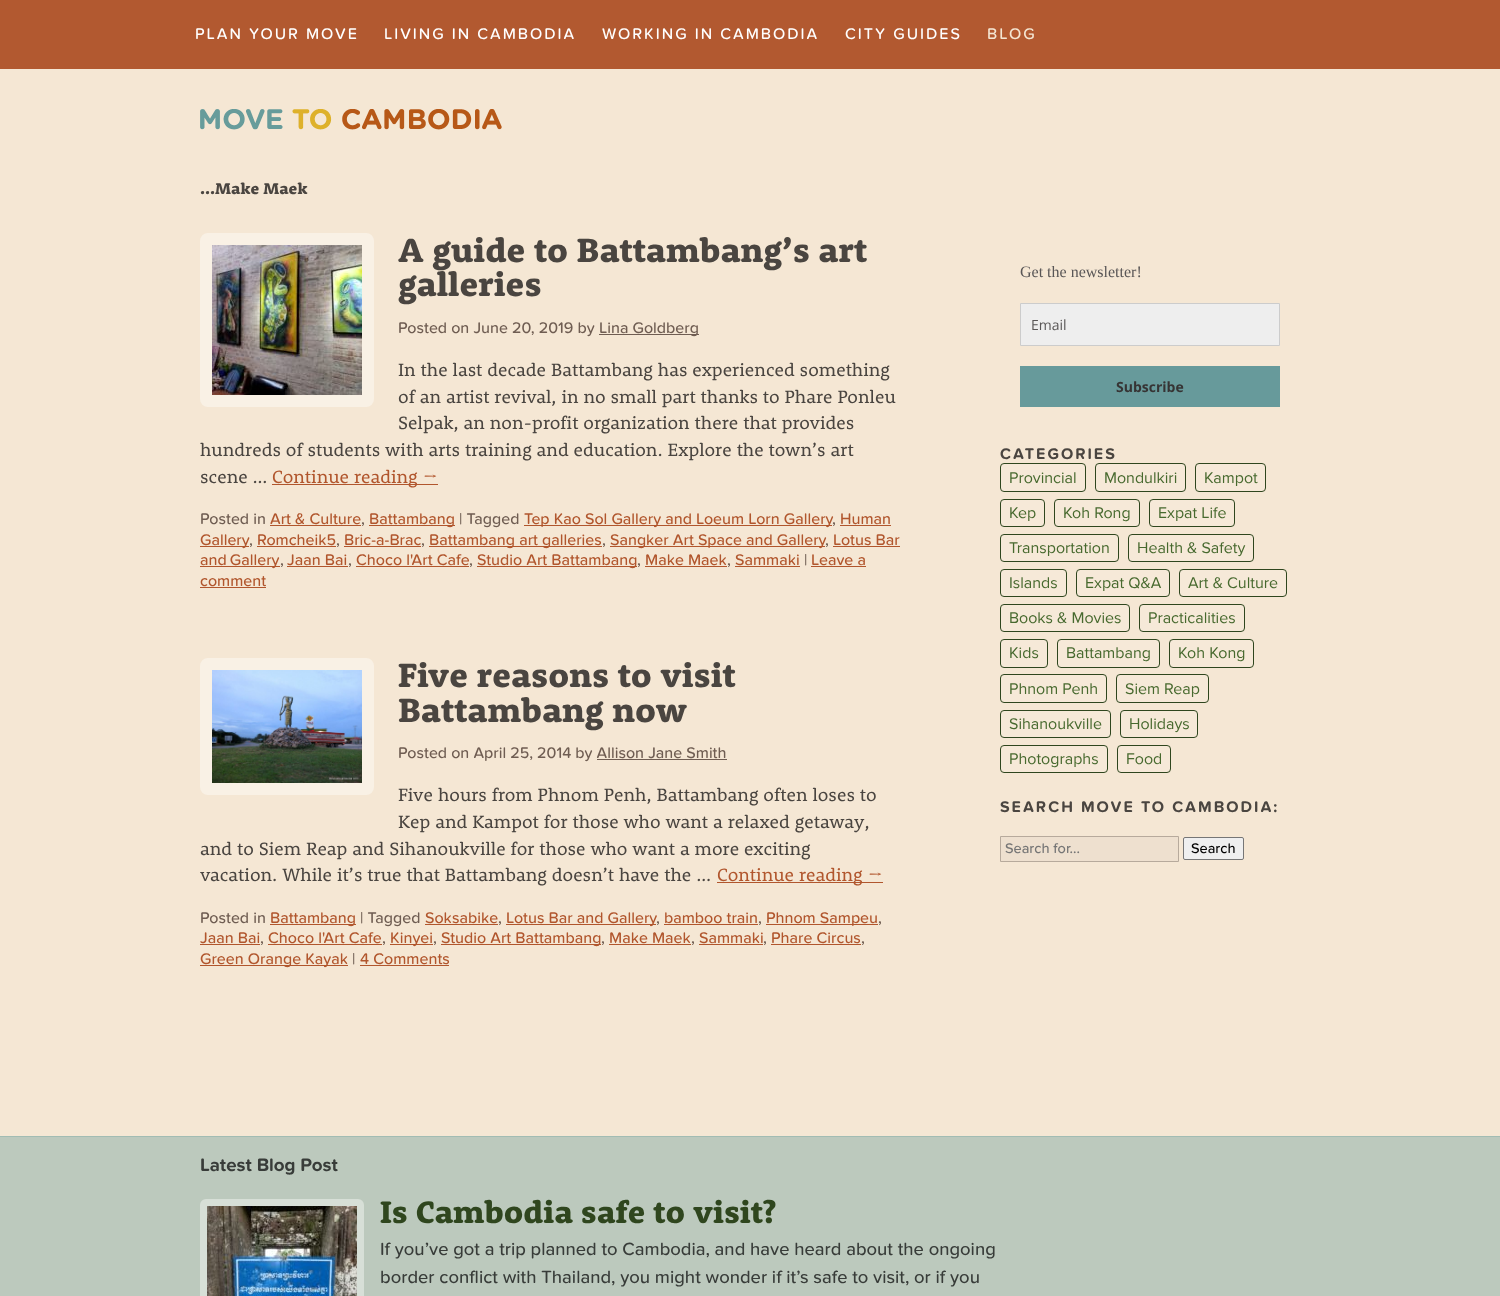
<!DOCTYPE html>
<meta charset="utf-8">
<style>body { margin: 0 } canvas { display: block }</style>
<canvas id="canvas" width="1500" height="1296"></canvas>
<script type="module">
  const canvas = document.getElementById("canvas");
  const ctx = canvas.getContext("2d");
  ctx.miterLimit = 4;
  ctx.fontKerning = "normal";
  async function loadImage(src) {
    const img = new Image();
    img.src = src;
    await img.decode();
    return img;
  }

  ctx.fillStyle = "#f5e7d4";
  ctx.fillRect(0, 0, 1500, 1296);
  ctx.fillStyle = "#b25930";
  ctx.fillRect(0, 0, 1500, 69);
  ctx.letterSpacing = "2px";
  ctx.font = "500 16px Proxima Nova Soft";
  ctx.fillStyle = "#ffffff";
  ctx.fillText("PLAN YOUR MOVE", 195, 39);
  ctx.fillText("LIVING IN CAMBODIA", 384, 39);
  ctx.fillText("WORKING IN CAMBODIA", 602, 39);
  ctx.fillText("CITY GUIDES", 845, 39);
  ctx.fillStyle = "#f4e6d3";
  ctx.fillText("BLOG", 987, 39);
  ctx.drawImage(await loadImage("img1.png"), 200, 109, 302, 21);
  ctx.letterSpacing = "0px";
  ctx.font = "900 16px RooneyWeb";
  ctx.fillStyle = "#4a4540";
  ctx.fillText("...Make Maek", 200, 194);
  ctx.beginPath();
  ctx.roundRect(206, 239, 162, 162, 2);
  ctx.strokeStyle = "#f9f1e5";
  ctx.lineWidth = 12;
  ctx.stroke();
  ctx.drawImage(await loadImage("img2.png"), 212, 245, 150, 150);
  ctx.font = "900 34.4px RooneyWeb";
  ctx.fillText("A guide to Battambang’s art", 398, 262);
  ctx.fillText("galleries", 398, 296);
  ctx.font = "500 16px Proxima Nova Soft";
  ctx.fillStyle = "#6f5d52";
  ctx.fillText("Posted on June 20, 2019 by", 398, 333);
  ctx.fillRect(599, 334, 100, 1);
  ctx.fillText("Lina Goldberg", 599, 333);
  ctx.font = "18.4px RooneyWeb";
  ctx.fillStyle = "#4a4540";
  ctx.fillText("In the last decade Battambang has experienced something", 398, 376);
  ctx.fillText("of an artist revival, in no small part thanks to Phare Ponleu", 398, 403);
  ctx.fillText("Selpak, an non-profit organization there that provides", 398, 429);
  ctx.fillText("hundreds of students with arts training and education. Explore the town’s art", 200, 456);
  ctx.fillText("scene …", 200, 483);
  ctx.fillStyle = "#b1562d";
  ctx.fillRect(272, 484, 166, 1);
  ctx.fillText("Continue reading", 272, 483);
  ctx.font = "18.4px Caladea";
  ctx.fillText("→", 423, 483);
  ctx.font = "500 16px Proxima Nova Soft";
  ctx.fillStyle = "#6f5d52";
  ctx.fillText("Posted in", 200, 524);
  ctx.fillStyle = "#b1562d";
  ctx.fillText("Art & Culture", 270, 524);
  ctx.fillRect(270, 525, 91, 1);
  ctx.fillStyle = "#6f5d52";
  ctx.fillText(",", 361, 524);
  ctx.fillStyle = "#b1562d";
  ctx.fillRect(369, 525, 86, 1);
  ctx.fillText("Battambang", 369, 524);
  ctx.fillStyle = "#6f5d52";
  ctx.fillText("| Tagged", 459, 524);
  ctx.fillStyle = "#b1562d";
  ctx.fillRect(524, 525, 308, 1);
  ctx.fillText("Tep Kao Sol Gallery and Loeum Lorn Gallery", 524, 524);
  ctx.fillStyle = "#6f5d52";
  ctx.fillText(",", 832, 524);
  ctx.fillStyle = "#b1562d";
  ctx.fillText("Human", 840, 524);
  ctx.fillRect(840, 525, 51, 1);
  ctx.fillRect(200, 546, 49, 1);
  ctx.fillText("Gallery", 200, 545);
  ctx.fillStyle = "#6f5d52";
  ctx.fillText(",", 249, 545);
  ctx.fillStyle = "#b1562d";
  ctx.fillText("Romcheik5", 257, 545);
  ctx.fillRect(257, 546, 79, 1);
  ctx.fillStyle = "#6f5d52";
  ctx.fillText(",", 336, 545);
  ctx.fillStyle = "#b1562d";
  ctx.fillText("Bric-a-Brac", 344, 545);
  ctx.fillRect(344, 546, 77, 1);
  ctx.fillStyle = "#6f5d52";
  ctx.fillText(",", 421, 545);
  ctx.fillStyle = "#b1562d";
  ctx.fillRect(429, 546, 173, 1);
  ctx.fillText("Battambang art galleries", 429, 545);
  ctx.fillStyle = "#6f5d52";
  ctx.fillText(",", 602, 545);
  ctx.fillStyle = "#b1562d";
  ctx.fillRect(610, 546, 215, 1);
  ctx.fillText("Sangker Art Space and Gallery", 610, 545);
  ctx.fillStyle = "#6f5d52";
  ctx.fillText(",", 825, 545);
  ctx.fillStyle = "#b1562d";
  ctx.fillText("Lotus Bar", 833, 545);
  ctx.fillRect(833, 546, 67, 1);
  ctx.fillRect(200, 566, 80, 1);
  ctx.wordSpacing = "-1px";
  ctx.fillText("and Gallery", 200, 565);
  ctx.wordSpacing = "0px";
  ctx.fillStyle = "#6f5d52";
  ctx.fillText(",", 280, 565);
  ctx.fillStyle = "#b1562d";
  ctx.fillText("Jaan Bai", 287, 565);
  ctx.fillRect(287, 566, 61, 1);
  ctx.fillStyle = "#6f5d52";
  ctx.fillText(",", 348, 565);
  ctx.fillStyle = "#b1562d";
  ctx.fillText("Choco l'Art Cafe", 356, 565);
  ctx.fillRect(356, 566, 113, 1);
  ctx.fillStyle = "#6f5d52";
  ctx.fillText(",", 469, 565);
  ctx.fillStyle = "#b1562d";
  ctx.fillRect(477, 566, 160, 1);
  ctx.fillText("Studio Art Battambang", 477, 565);
  ctx.fillStyle = "#6f5d52";
  ctx.fillText(",", 637, 565);
  ctx.fillStyle = "#b1562d";
  ctx.fillText("Make Maek", 645, 565);
  ctx.fillRect(645, 566, 82, 1);
  ctx.fillStyle = "#6f5d52";
  ctx.fillText(",", 727, 565);
  ctx.fillStyle = "#b1562d";
  ctx.fillText("Sammaki", 735, 565);
  ctx.fillRect(735, 566, 65, 1);
  ctx.fillStyle = "#6f5d52";
  ctx.fillText("|", 804, 565);
  ctx.fillStyle = "#b1562d";
  ctx.fillText("Leave a", 811, 565);
  ctx.fillRect(811, 566, 55, 1);
  ctx.fillText("comment", 200, 586);
  ctx.fillRect(200, 587, 66, 1);
  ctx.beginPath();
  ctx.roundRect(206, 664, 162, 125, 2);
  ctx.stroke();
  ctx.drawImage(await loadImage("img3.png"), 212, 670, 150, 113);
  ctx.font = "900 34.4px RooneyWeb";
  ctx.fillStyle = "#4a4540";
  ctx.fillText("Five reasons to visit", 398, 687);
  ctx.fillText("Battambang now", 398, 722);
  ctx.font = "500 16px Proxima Nova Soft";
  ctx.fillStyle = "#6f5d52";
  ctx.fillText("Posted on April 25, 2014 by Allison Jane Smith", 398, 758);
  ctx.fillRect(597, 759, 130, 1);
  ctx.font = "18.4px RooneyWeb";
  ctx.fillStyle = "#4a4540";
  ctx.fillText("Five hours from Phnom Penh, Battambang often loses to", 398, 801);
  ctx.fillText("Kep and Kampot for those who want a relaxed getaway,", 398, 828);
  ctx.fillText("and to Siem Reap and Sihanoukville for those who want a more exciting", 200, 855);
  ctx.fillText("vacation. While it’s true that Battambang doesn’t have the …", 200, 881);
  ctx.fillStyle = "#b1562d";
  ctx.fillRect(717, 882, 166, 1);
  ctx.fillText("Continue reading", 717, 881);
  ctx.font = "18.4px Caladea";
  ctx.fillText("→", 868, 881);
  ctx.font = "500 16px Proxima Nova Soft";
  ctx.fillStyle = "#6f5d52";
  ctx.fillText("Posted in", 200, 923);
  ctx.fillStyle = "#b1562d";
  ctx.fillRect(270, 924, 86, 1);
  ctx.fillText("Battambang", 270, 923);
  ctx.fillStyle = "#6f5d52";
  ctx.fillText("| Tagged", 360, 923);
  ctx.fillStyle = "#b1562d";
  ctx.fillText("Soksabike", 425, 923);
  ctx.fillRect(425, 924, 73, 1);
  ctx.fillStyle = "#6f5d52";
  ctx.fillText(",", 498, 923);
  ctx.fillStyle = "#b1562d";
  ctx.fillRect(506, 924, 150, 1);
  ctx.fillText("Lotus Bar and Gallery", 506, 923);
  ctx.fillStyle = "#6f5d52";
  ctx.fillText(",", 656, 923);
  ctx.fillStyle = "#b1562d";
  ctx.fillText("bamboo train", 664, 923);
  ctx.fillRect(664, 924, 94, 1);
  ctx.fillStyle = "#6f5d52";
  ctx.fillText(",", 758, 923);
  ctx.fillStyle = "#b1562d";
  ctx.fillRect(766, 924, 112, 1);
  ctx.fillText("Phnom Sampeu", 766, 923);
  ctx.fillStyle = "#6f5d52";
  ctx.fillText(",", 878, 923);
  ctx.fillStyle = "#b1562d";
  ctx.fillText("Jaan Bai", 200, 943);
  ctx.fillRect(200, 944, 60, 1);
  ctx.fillStyle = "#6f5d52";
  ctx.fillText(",", 260, 943);
  ctx.fillStyle = "#b1562d";
  ctx.fillText("Choco l'Art Cafe", 268, 943);
  ctx.fillRect(268, 944, 114, 1);
  ctx.fillStyle = "#6f5d52";
  ctx.fillText(",", 382, 943);
  ctx.fillStyle = "#b1562d";
  ctx.fillRect(390, 944, 43, 1);
  ctx.fillText("Kinyei", 390, 943);
  ctx.fillStyle = "#6f5d52";
  ctx.fillText(",", 433, 943);
  ctx.fillStyle = "#b1562d";
  ctx.fillRect(441, 944, 160, 1);
  ctx.fillText("Studio Art Battambang", 441, 943);
  ctx.fillStyle = "#6f5d52";
  ctx.fillText(",", 601, 943);
  ctx.fillStyle = "#b1562d";
  ctx.fillText("Make Maek", 609, 943);
  ctx.fillRect(609, 944, 82, 1);
  ctx.fillStyle = "#6f5d52";
  ctx.fillText(",", 691, 943);
  ctx.fillStyle = "#b1562d";
  ctx.fillText("Sammaki", 699, 943);
  ctx.fillRect(699, 944, 64, 1);
  ctx.fillStyle = "#6f5d52";
  ctx.fillText(",", 763, 943);
  ctx.fillStyle = "#b1562d";
  ctx.fillText("Phare Circus", 771, 943);
  ctx.fillRect(771, 944, 90, 1);
  ctx.fillStyle = "#6f5d52";
  ctx.fillText(",", 861, 943);
  ctx.fillStyle = "#b1562d";
  ctx.fillRect(200, 965, 148, 1);
  ctx.fillText("Green Orange Kayak", 200, 964);
  ctx.fillStyle = "#6f5d52";
  ctx.fillText("|", 352, 964);
  ctx.fillStyle = "#b1562d";
  ctx.fillText("4 Comments", 360, 964);
  ctx.fillRect(360, 965, 89, 1);
  ctx.font = "16px Liberation Serif";
  ctx.fillStyle = "#595656";
  ctx.fillText("Get the newsletter!", 1020, 277);
  ctx.fillStyle = "#eeeeee";
  ctx.beginPath();
  ctx.rect(1020.5, 303.5, 259, 42);
  ctx.fill();
  ctx.strokeStyle = "#cccccc";
  ctx.lineWidth = 1;
  ctx.stroke();
  ctx.font = "14px Open Sans";
  ctx.fillStyle = "#595656";
  ctx.fillText("Email", 1031, 330);
  ctx.fillStyle = "#679a9b";
  ctx.fillRect(1020, 366, 260, 41);
  ctx.font = "bold 14px Open Sans";
  ctx.fillStyle = "#363434";
  ctx.fillText("Subscribe", 1116, 392);
  ctx.letterSpacing = "2px";
  ctx.font = "bold 16px Proxima Nova Soft";
  ctx.fillStyle = "#4a4540";
  ctx.fillText("CATEGORIES", 1000, 459);
  ctx.fillStyle = "#f6e9d8";
  ctx.beginPath();
  ctx.roundRect(1000.5, 463.5, 85, 28, 3.5);
  ctx.fill();
  ctx.strokeStyle = "#2f461e";
  ctx.stroke();
  ctx.letterSpacing = "0px";
  ctx.font = "16px Proxima Nova";
  ctx.fillStyle = "#47692e";
  ctx.fillText("Provincial", 1009, 483);
  ctx.fillStyle = "#f6e9d8";
  ctx.beginPath();
  ctx.roundRect(1095.5, 463.5, 90, 28, 3.5);
  ctx.fill();
  ctx.stroke();
  ctx.fillStyle = "#47692e";
  ctx.fillText("Mondulkiri", 1104, 483);
  ctx.fillStyle = "#f6e9d8";
  ctx.beginPath();
  ctx.roundRect(1195.5, 463.5, 70, 28, 3.5);
  ctx.fill();
  ctx.stroke();
  ctx.fillStyle = "#47692e";
  ctx.fillText("Kampot", 1204, 483);
  ctx.fillStyle = "#f6e9d8";
  ctx.beginPath();
  ctx.roundRect(1000.5, 499.5, 44, 27, 3.5);
  ctx.fill();
  ctx.stroke();
  ctx.fillStyle = "#47692e";
  ctx.fillText("Kep", 1009, 518);
  ctx.fillStyle = "#f6e9d8";
  ctx.beginPath();
  ctx.roundRect(1054.5, 499.5, 85, 27, 3.5);
  ctx.fill();
  ctx.stroke();
  ctx.fillStyle = "#47692e";
  ctx.fillText("Koh Rong", 1063, 518);
  ctx.fillStyle = "#f6e9d8";
  ctx.beginPath();
  ctx.roundRect(1149.5, 499.5, 85, 27, 3.5);
  ctx.fill();
  ctx.stroke();
  ctx.fillStyle = "#47692e";
  ctx.fillText("Expat Life", 1158, 518);
  ctx.fillStyle = "#f6e9d8";
  ctx.beginPath();
  ctx.roundRect(1000.5, 534.5, 118, 27, 3.5);
  ctx.fill();
  ctx.stroke();
  ctx.fillStyle = "#47692e";
  ctx.fillText("Transportation", 1009, 553);
  ctx.fillStyle = "#f6e9d8";
  ctx.beginPath();
  ctx.roundRect(1128.5, 534.5, 125, 27, 3.5);
  ctx.fill();
  ctx.stroke();
  ctx.fillStyle = "#47692e";
  ctx.fillText("Health & Safety", 1137, 553);
  ctx.fillStyle = "#f6e9d8";
  ctx.beginPath();
  ctx.roundRect(1000.5, 569.5, 66, 27, 3.5);
  ctx.fill();
  ctx.stroke();
  ctx.fillStyle = "#47692e";
  ctx.fillText("Islands", 1009, 588);
  ctx.fillStyle = "#f6e9d8";
  ctx.beginPath();
  ctx.roundRect(1076.5, 569.5, 93, 27, 3.5);
  ctx.fill();
  ctx.stroke();
  ctx.fillStyle = "#47692e";
  ctx.fillText("Expat Q&A", 1085, 588);
  ctx.fillStyle = "#f6e9d8";
  ctx.beginPath();
  ctx.roundRect(1179.5, 569.5, 107, 27, 3.5);
  ctx.fill();
  ctx.stroke();
  ctx.fillStyle = "#47692e";
  ctx.fillText("Art & Culture", 1188, 588);
  ctx.fillStyle = "#f6e9d8";
  ctx.beginPath();
  ctx.roundRect(1000.5, 604.5, 129, 27, 3.5);
  ctx.fill();
  ctx.stroke();
  ctx.fillStyle = "#47692e";
  ctx.fillText("Books & Movies", 1009, 623);
  ctx.fillStyle = "#f6e9d8";
  ctx.beginPath();
  ctx.roundRect(1139.5, 604.5, 105, 27, 3.5);
  ctx.fill();
  ctx.stroke();
  ctx.fillStyle = "#47692e";
  ctx.fillText("Practicalities", 1148, 623);
  ctx.fillStyle = "#f6e9d8";
  ctx.beginPath();
  ctx.roundRect(1000.5, 639.5, 47, 28, 3.5);
  ctx.fill();
  ctx.stroke();
  ctx.fillStyle = "#47692e";
  ctx.fillText("Kids", 1009, 658);
  ctx.fillStyle = "#f6e9d8";
  ctx.beginPath();
  ctx.roundRect(1057.5, 639.5, 102, 28, 3.5);
  ctx.fill();
  ctx.stroke();
  ctx.fillStyle = "#47692e";
  ctx.fillText("Battambang", 1066, 658);
  ctx.fillStyle = "#f6e9d8";
  ctx.beginPath();
  ctx.roundRect(1169.5, 639.5, 84, 28, 3.5);
  ctx.fill();
  ctx.stroke();
  ctx.fillStyle = "#47692e";
  ctx.fillText("Koh Kong", 1178, 658);
  ctx.fillStyle = "#f6e9d8";
  ctx.beginPath();
  ctx.roundRect(1000.5, 674.5, 106, 28, 3.5);
  ctx.fill();
  ctx.stroke();
  ctx.fillStyle = "#47692e";
  ctx.fillText("Phnom Penh", 1009, 694);
  ctx.fillStyle = "#f6e9d8";
  ctx.beginPath();
  ctx.roundRect(1116.5, 674.5, 92, 28, 3.5);
  ctx.fill();
  ctx.stroke();
  ctx.fillStyle = "#47692e";
  ctx.fillText("Siem Reap", 1125, 694);
  ctx.fillStyle = "#f6e9d8";
  ctx.beginPath();
  ctx.roundRect(1000.5, 710.5, 110, 27, 3.5);
  ctx.fill();
  ctx.stroke();
  ctx.fillStyle = "#47692e";
  ctx.fillText("Sihanoukville", 1009, 729);
  ctx.fillStyle = "#f6e9d8";
  ctx.beginPath();
  ctx.roundRect(1120.5, 710.5, 77, 27, 3.5);
  ctx.fill();
  ctx.stroke();
  ctx.fillStyle = "#47692e";
  ctx.fillText("Holidays", 1129, 729);
  ctx.fillStyle = "#f6e9d8";
  ctx.beginPath();
  ctx.roundRect(1000.5, 745.5, 107, 27, 3.5);
  ctx.fill();
  ctx.stroke();
  ctx.fillStyle = "#47692e";
  ctx.fillText("Photographs", 1009, 764);
  ctx.fillStyle = "#f6e9d8";
  ctx.beginPath();
  ctx.roundRect(1117.5, 745.5, 53, 27, 3.5);
  ctx.fill();
  ctx.stroke();
  ctx.fillStyle = "#47692e";
  ctx.fillText("Food", 1126, 764);
  ctx.letterSpacing = "2px";
  ctx.font = "bold 16px Proxima Nova Soft";
  ctx.fillStyle = "#4a4540";
  ctx.fillText("SEARCH MOVE TO CAMBODIA:", 1000, 812);
  ctx.fillStyle = "#eee0cf";
  ctx.beginPath();
  ctx.rect(1000.5, 836.5, 178, 25);
  ctx.fill();
  ctx.strokeStyle = "#b7aa9c";
  ctx.stroke();
  ctx.letterSpacing = "0px";
  ctx.font = "500 14.5px Proxima Nova Soft";
  ctx.fillStyle = "#757575";
  ctx.fillText("Search for...", 1005, 853);
  ctx.fillStyle = "#efefef";
  ctx.beginPath();
  ctx.roundRect(1183.5, 837.5, 60, 22, 1.5);
  ctx.fill();
  ctx.strokeStyle = "#767676";
  ctx.stroke();
  ctx.fillStyle = "#000000";
  ctx.fillText("Search", 1191, 853);
  ctx.fillStyle = "#bcc9bd";
  ctx.fillRect(0, 1137, 1500, 159);
  ctx.fillStyle = "#a2bcb3";
  ctx.fillRect(0, 1136, 1500, 1);
  ctx.font = "bold 18.75px Proxima Nova Soft";
  ctx.fillStyle = "#383c39";
  ctx.fillText("Latest Blog Post", 200, 1171);
  ctx.beginPath();
  ctx.roundRect(203.5, 1202.5, 157, 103, 2.5);
  ctx.strokeStyle = "#d7dfd7";
  ctx.lineWidth = 7;
  ctx.stroke();
  ctx.drawImage(await loadImage("img4.png"), 207, 1206, 150, 90);
  ctx.font = "900 32px RooneyWeb";
  ctx.fillStyle = "#2f461e";
  ctx.fillText("Is Cambodia safe to visit?", 380, 1223);
  ctx.font = "500 18.4px Proxima Nova Soft";
  ctx.fillStyle = "#383c39";
  ctx.fillText("If you’ve got a trip planned to Cambodia, and have heard about the ongoing", 380, 1255);
  ctx.fillText("border conflict with Thailand, you might wonder if it’s safe to visit, or if you", 380, 1283);
</script>
